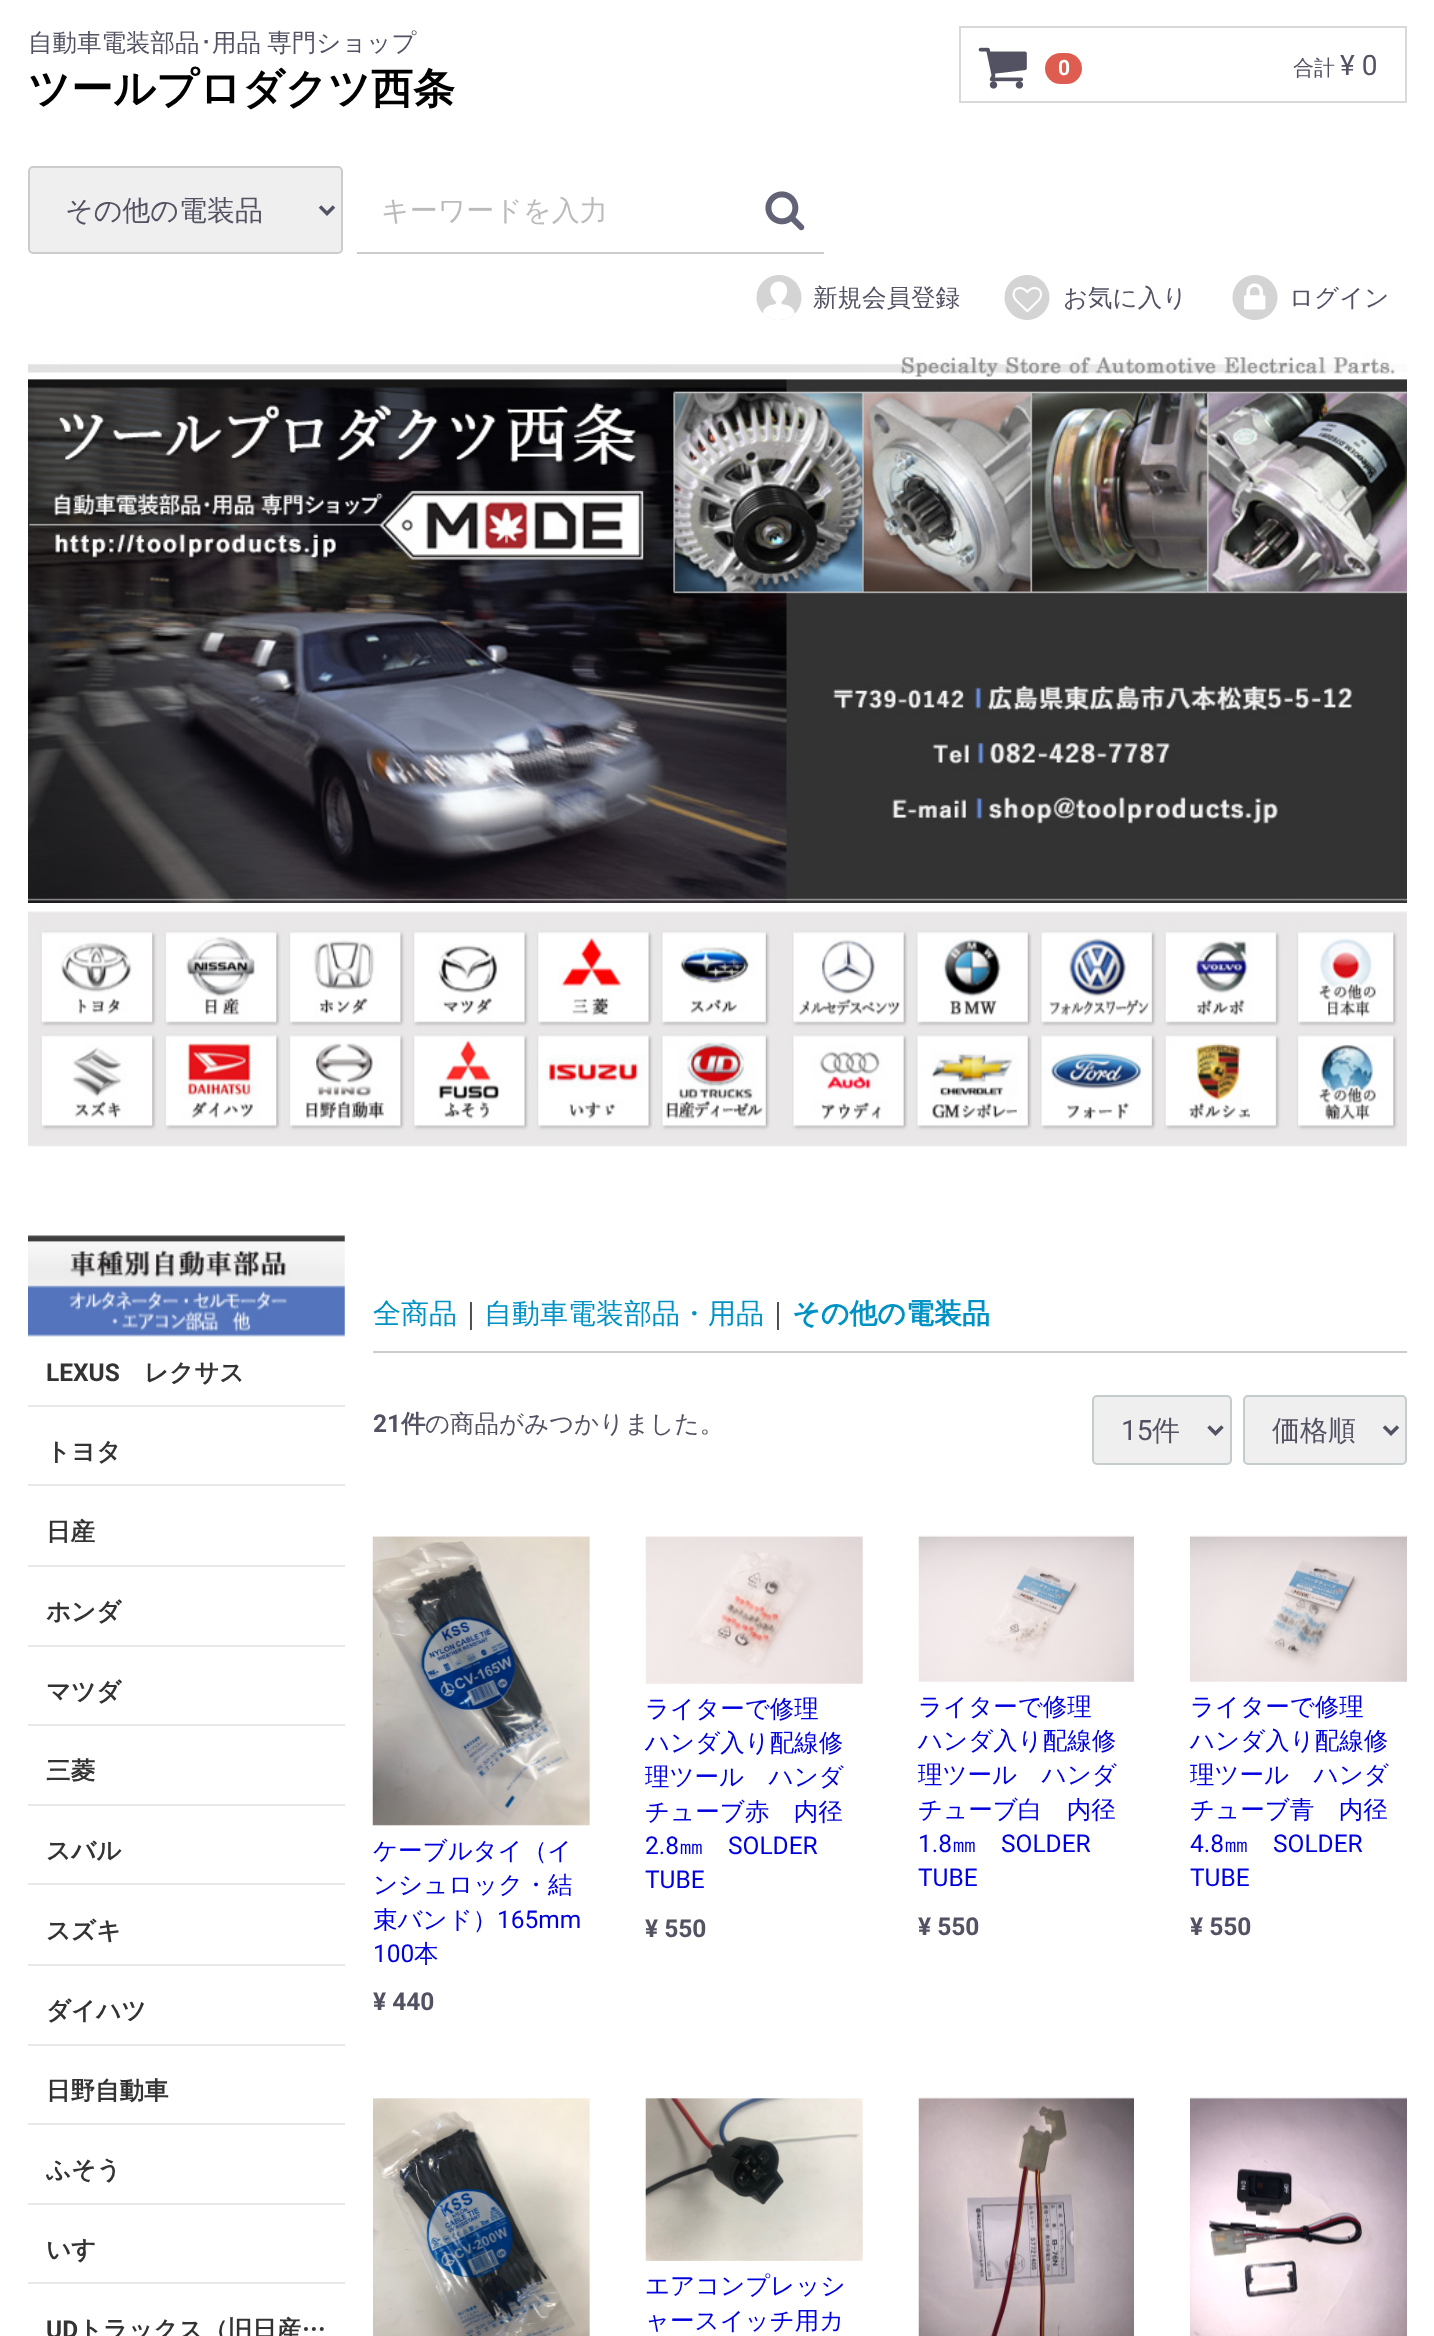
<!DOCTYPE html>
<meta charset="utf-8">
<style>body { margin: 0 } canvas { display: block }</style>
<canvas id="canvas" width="1434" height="2336"></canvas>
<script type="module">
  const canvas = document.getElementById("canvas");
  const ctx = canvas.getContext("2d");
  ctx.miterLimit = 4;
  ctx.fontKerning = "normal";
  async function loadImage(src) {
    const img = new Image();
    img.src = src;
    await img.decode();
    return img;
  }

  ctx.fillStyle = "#ffffff";
  ctx.fillRect(0, 0, 1434, 2336);
  ctx.font = "500 24.5px WenQuanYi Zen Hei";
  ctx.fillStyle = "#525263";
  ctx.fillText("自動車電装部品", 28, 51);
  ctx.font = "24.5px IPAPGothic";
  ctx.fillText("･", 200, 51);
  ctx.wordSpacing = "-1px";
  ctx.font = "500 24.5px WenQuanYi Zen Hei";
  ctx.fillText("用品 専門ショップ", 212, 51);
  ctx.wordSpacing = "0px";
  ctx.font = "bold 42px WenQuanYi Zen Hei";
  ctx.fillStyle = "#000000";
  ctx.fillText("ツールプロダクツ西条", 28, 103);
  ctx.strokeStyle = "#d9d9d9";
  ctx.lineWidth = 2;
  ctx.strokeRect(960, 27, 446, 75);
  ctx.drawImage(await loadImage("img1.png"), 978, 47, 49, 42);
  ctx.fillStyle = "#de5d50";
  ctx.beginPath();
  ctx.roundRect(1045, 53, 37, 31, 15.5);
  ctx.fill();
  ctx.font = "bold 21px Roboto";
  ctx.fillStyle = "#ffffff";
  ctx.fillText("0", 1058, 75);
  ctx.font = "500 21px WenQuanYi Zen Hei";
  ctx.fillStyle = "#525263";
  ctx.fillText("合計", 1293, 75);
  ctx.font = "28px Roboto";
  ctx.fillText("¥ 0", 1340, 75);
  ctx.fillStyle = "#efefef";
  ctx.beginPath();
  ctx.roundRect(29, 167, 313, 86, 4);
  ctx.fill();
  ctx.strokeStyle = "#cccccc";
  ctx.stroke();
  ctx.beginPath();
  ctx.moveTo(320, 206.5);
  ctx.lineTo(327, 213.5);
  ctx.lineTo(334, 206.5);
  ctx.strokeStyle = "#525263";
  ctx.lineWidth = 3.5;
  ctx.stroke();
  ctx.font = "500 28px WenQuanYi Zen Hei";
  ctx.fillStyle = "#525263";
  ctx.fillText("その他の電装品", 65, 220);
  ctx.fillStyle = "#cccccc";
  ctx.fillRect(357, 252, 467, 2);
  ctx.fillStyle = "#bbbbbb";
  ctx.fillText("キーワードを入力", 381, 220);
  ctx.drawImage(await loadImage("img2.png"), 765, 191, 40, 40);
  ctx.drawImage(await loadImage("img3.png"), 756, 275, 46, 45);
  ctx.font = "500 24.5px WenQuanYi Zen Hei";
  ctx.fillStyle = "#525263";
  ctx.fillText("新規会員登録", 813, 306);
  ctx.drawImage(await loadImage("img4.png"), 1004, 275, 46, 45);
  ctx.fillText("お気に入り", 1063, 306);
  ctx.drawImage(await loadImage("img5.png"), 1232, 275, 46, 45);
  ctx.fillText("ログイン", 1289, 306);
  ctx.drawImage(await loadImage("img6.png"), 28, 352, 1379, 551);
  ctx.drawImage(await loadImage("img7.png"), 28, 911, 1379, 236);
  ctx.drawImage(await loadImage("img8.png"), 28, 1235, 317, 102);
  ctx.fillStyle = "#e8e8e8";
  ctx.fillRect(28, 1405, 317, 2);
  ctx.font = "bold 24.5px Roboto";
  ctx.fillStyle = "#333333";
  ctx.fillText("LEXUS", 46, 1381);
  ctx.font = "bold 24.5px WenQuanYi Zen Hei";
  ctx.fillText("レクサス", 144, 1381);
  ctx.fillStyle = "#e8e8e8";
  ctx.fillRect(28, 1484, 317, 2);
  ctx.fillStyle = "#333333";
  ctx.fillText("トヨタ", 46, 1460);
  ctx.fillStyle = "#e8e8e8";
  ctx.fillRect(28, 1565, 317, 2);
  ctx.fillStyle = "#333333";
  ctx.fillText("日産", 46, 1540);
  ctx.fillStyle = "#e8e8e8";
  ctx.fillRect(28, 1645, 317, 2);
  ctx.fillStyle = "#333333";
  ctx.fillText("ホンダ", 46, 1620);
  ctx.fillStyle = "#e8e8e8";
  ctx.fillRect(28, 1724, 317, 2);
  ctx.fillStyle = "#333333";
  ctx.fillText("マツダ", 46, 1700);
  ctx.fillStyle = "#e8e8e8";
  ctx.fillRect(28, 1804, 317, 2);
  ctx.fillStyle = "#333333";
  ctx.fillText("三菱", 46, 1779);
  ctx.fillStyle = "#e8e8e8";
  ctx.fillRect(28, 1883, 317, 2);
  ctx.fillStyle = "#333333";
  ctx.fillText("スバル", 46, 1859);
  ctx.fillStyle = "#e8e8e8";
  ctx.fillRect(28, 1964, 317, 2);
  ctx.fillStyle = "#333333";
  ctx.fillText("スズキ", 46, 1939);
  ctx.fillStyle = "#e8e8e8";
  ctx.fillRect(28, 2044, 317, 2);
  ctx.fillStyle = "#333333";
  ctx.fillText("ダイハツ", 46, 2019);
  ctx.fillStyle = "#e8e8e8";
  ctx.fillRect(28, 2123, 317, 2);
  ctx.fillStyle = "#333333";
  ctx.fillText("日野自動車", 46, 2099);
  ctx.fillStyle = "#e8e8e8";
  ctx.fillRect(28, 2203, 317, 2);
  ctx.fillStyle = "#333333";
  ctx.fillText("ふそう", 46, 2178);
  ctx.fillStyle = "#e8e8e8";
  ctx.fillRect(28, 2282, 317, 2);
  ctx.fillStyle = "#333333";
  ctx.fillText("いすゞ", 46, 2258);
  ctx.font = "bold 24.5px Roboto";
  ctx.fillText("UD", 46, 2338);
  ctx.font = "bold 24.5px WenQuanYi Zen Hei";
  ctx.fillText("トラックス（旧日産…", 78, 2338);
  ctx.fillStyle = "#cccccc";
  ctx.fillRect(373, 1351, 1034, 2);
  ctx.font = "500 28px WenQuanYi Zen Hei";
  ctx.fillStyle = "#0092c4";
  ctx.fillText("全商品", 373, 1323);
  ctx.fillStyle = "#333333";
  ctx.fillText("｜", 457, 1323);
  ctx.fillStyle = "#0092c4";
  ctx.fillText("自動車電装部品・用品", 484, 1323);
  ctx.fillStyle = "#333333";
  ctx.fillText("｜", 764, 1323);
  ctx.font = "bold 28px WenQuanYi Zen Hei";
  ctx.fillStyle = "#0092c4";
  ctx.fillText("その他の電装品", 792, 1323);
  ctx.font = "bold 24.5px Roboto";
  ctx.fillStyle = "#525263";
  ctx.fillText("21", 373, 1432);
  ctx.font = "bold 24.5px WenQuanYi Zen Hei";
  ctx.fillText("件", 401, 1432);
  ctx.font = "500 24.5px WenQuanYi Zen Hei";
  ctx.fillText("の商品がみつかりました。", 425, 1432);
  ctx.fillStyle = "#efefef";
  ctx.beginPath();
  ctx.roundRect(1093, 1396, 138, 68, 4);
  ctx.fill();
  ctx.strokeStyle = "#c4ccce";
  ctx.lineWidth = 2;
  ctx.stroke();
  ctx.beginPath();
  ctx.moveTo(1208.5, 1426.5);
  ctx.lineTo(1215.5, 1433.5);
  ctx.lineTo(1222.5, 1426.5);
  ctx.strokeStyle = "#525263";
  ctx.lineWidth = 3.5;
  ctx.stroke();
  ctx.font = "28px Roboto";
  ctx.fillStyle = "#525263";
  ctx.fillText("15", 1121, 1440);
  ctx.font = "500 28px WenQuanYi Zen Hei";
  ctx.fillText("件", 1152, 1440);
  ctx.fillStyle = "#efefef";
  ctx.beginPath();
  ctx.roundRect(1244, 1396, 162, 68, 4);
  ctx.fill();
  ctx.strokeStyle = "#c4ccce";
  ctx.lineWidth = 2;
  ctx.stroke();
  ctx.beginPath();
  ctx.moveTo(1384, 1426.5);
  ctx.lineTo(1391, 1433.5);
  ctx.lineTo(1398, 1426.5);
  ctx.strokeStyle = "#525263";
  ctx.lineWidth = 3.5;
  ctx.stroke();
  ctx.fillStyle = "#525263";
  ctx.fillText("価格順", 1272, 1440);
  ctx.drawImage(await loadImage("img9.png"), 372, 1536, 218, 290);
  ctx.font = "500 24.5px WenQuanYi Zen Hei";
  ctx.fillStyle = "#0000de";
  ctx.fillText("ケーブルタイ（イ", 373, 1859);
  ctx.fillText("ンシュロック・結", 373, 1893);
  ctx.fillText("束バンド）", 373, 1928);
  ctx.font = "24.5px Roboto";
  ctx.fillText("165mm", 497, 1928);
  ctx.fillText("100", 373, 1962);
  ctx.font = "500 24.5px WenQuanYi Zen Hei";
  ctx.fillText("本", 414, 1962);
  ctx.font = "bold 24.5px Roboto";
  ctx.fillStyle = "#525263";
  ctx.fillText("¥ 440", 373, 2010);
  ctx.drawImage(await loadImage("img10.png"), 645, 1536, 218, 148);
  ctx.font = "500 24.5px WenQuanYi Zen Hei";
  ctx.fillStyle = "#0000de";
  ctx.fillText("ライターで修理", 645, 1717);
  ctx.fillText("ハンダ入り配線修", 645, 1751);
  ctx.fillText("理ツール　ハンダ", 645, 1785);
  ctx.fillText("チューブ赤　内径", 645, 1820);
  ctx.font = "24.5px Roboto";
  ctx.fillText("2.8", 645, 1854);
  ctx.font = "500 24.5px WenQuanYi Zen Hei";
  ctx.fillText("㎜", 679, 1854);
  ctx.font = "24.5px Roboto";
  ctx.fillText("SOLDER", 728, 1854);
  ctx.fillText("TUBE", 645, 1888);
  ctx.font = "bold 24.5px Roboto";
  ctx.fillStyle = "#525263";
  ctx.fillText("¥ 550", 645, 1937);
  ctx.drawImage(await loadImage("img11.png"), 918, 1535, 216, 147);
  ctx.font = "500 24.5px WenQuanYi Zen Hei";
  ctx.fillStyle = "#0000de";
  ctx.fillText("ライターで修理", 918, 1715);
  ctx.fillText("ハンダ入り配線修", 918, 1749);
  ctx.fillText("理ツール　ハンダ", 918, 1783);
  ctx.fillText("チューブ白　内径", 918, 1818);
  ctx.font = "24.5px Roboto";
  ctx.fillText("1.8", 918, 1852);
  ctx.font = "500 24.5px WenQuanYi Zen Hei";
  ctx.fillText("㎜", 952, 1852);
  ctx.font = "24.5px Roboto";
  ctx.fillText("SOLDER", 1001, 1852);
  ctx.fillText("TUBE", 918, 1886);
  ctx.font = "bold 24.5px Roboto";
  ctx.fillStyle = "#525263";
  ctx.fillText("¥ 550", 918, 1935);
  ctx.drawImage(await loadImage("img12.png"), 1190, 1535, 217, 147);
  ctx.font = "500 24.5px WenQuanYi Zen Hei";
  ctx.fillStyle = "#0000de";
  ctx.fillText("ライターで修理", 1190, 1715);
  ctx.fillText("ハンダ入り配線修", 1190, 1749);
  ctx.fillText("理ツール　ハンダ", 1190, 1783);
  ctx.fillText("チューブ青　内径", 1190, 1818);
  ctx.font = "24.5px Roboto";
  ctx.fillText("4.8", 1190, 1852);
  ctx.font = "500 24.5px WenQuanYi Zen Hei";
  ctx.fillText("㎜", 1224, 1852);
  ctx.font = "24.5px Roboto";
  ctx.fillText("SOLDER", 1273, 1852);
  ctx.fillText("TUBE", 1190, 1886);
  ctx.font = "bold 24.5px Roboto";
  ctx.fillStyle = "#525263";
  ctx.fillText("¥ 550", 1190, 1935);
  ctx.drawImage(await loadImage("img13.png"), 373, 2098, 217, 238);
  ctx.drawImage(await loadImage("img14.png"), 645, 2098, 218, 163);
  ctx.font = "500 24.5px WenQuanYi Zen Hei";
  ctx.fillStyle = "#0000de";
  ctx.fillText("エアコンプレッシ", 645, 2294);
  ctx.fillText("ャースイッチ用カ", 645, 2329);
  ctx.drawImage(await loadImage("img15.png"), 918, 2097, 216, 239);
  ctx.drawImage(await loadImage("img16.png"), 1190, 2097, 217, 239);
</script>
